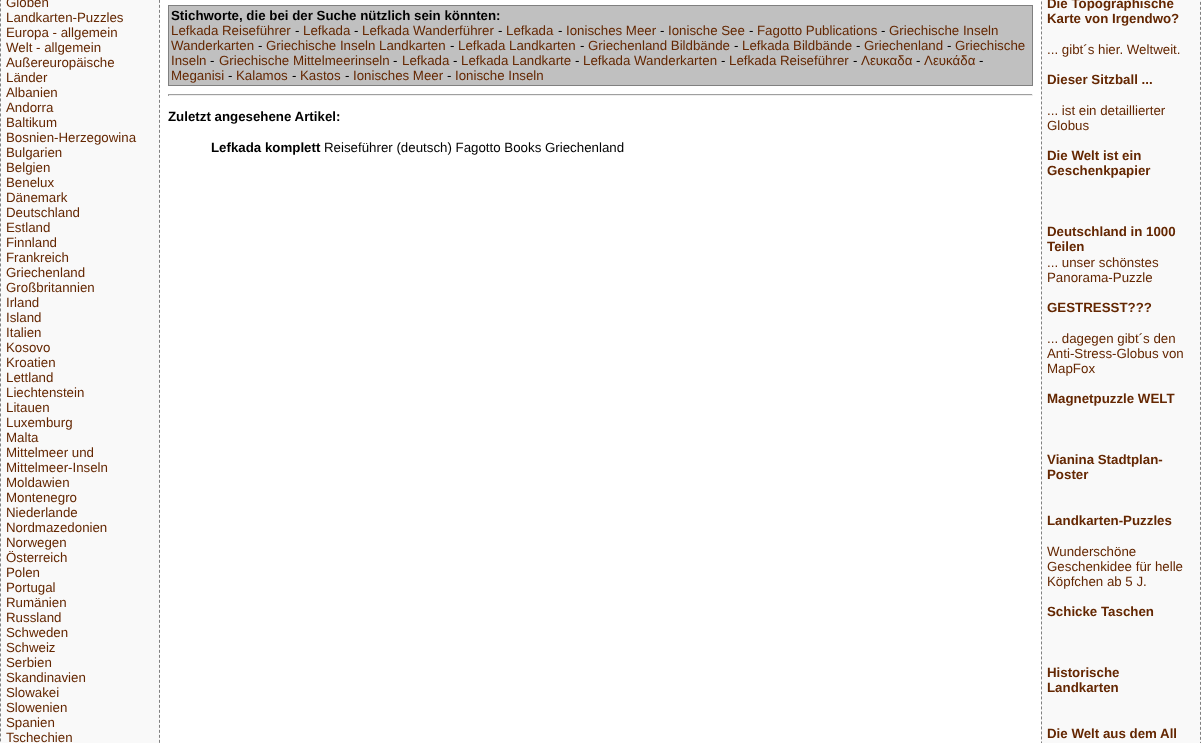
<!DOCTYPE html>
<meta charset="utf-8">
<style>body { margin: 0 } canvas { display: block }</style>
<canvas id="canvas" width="1201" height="743"></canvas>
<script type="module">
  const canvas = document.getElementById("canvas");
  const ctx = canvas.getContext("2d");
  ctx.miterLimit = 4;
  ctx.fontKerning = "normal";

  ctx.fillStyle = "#ffffff";
  ctx.fillRect(0, 0, 1201, 743);
  ctx.fillStyle = "#f9f9f9";
  ctx.fillRect(0, 0, 160, 743);
  ctx.beginPath();
  ctx.moveTo(0.5, -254.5);
  ctx.lineTo(152, -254.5);
  ctx.bezierCurveTo(156, -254.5, 159.5, -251, 159.5, -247);
  ctx.lineTo(159.5, 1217);
  ctx.bezierCurveTo(159.5, 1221, 156, 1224.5, 152, 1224.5);
  ctx.lineTo(8, 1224.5);
  ctx.bezierCurveTo(4, 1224.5, 0.5, 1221, 0.5, 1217);
  ctx.closePath();
  ctx.strokeStyle = "#808080";
  ctx.setLineDash([3, 2]);
  ctx.stroke();
  ctx.font = "13.3px Liberation Sans";
  ctx.fillStyle = "#642702";
  ctx.fillText("Globen", 6, 7);
  ctx.fillText("Landkarten-Puzzles", 6, 22);
  ctx.fillText("Europa - allgemein", 6, 37);
  ctx.fillText("Welt - allgemein", 6, 52);
  ctx.fillText("Außereuropäische", 6, 67);
  ctx.fillText("Länder", 6, 82);
  ctx.fillText("Albanien", 6, 97);
  ctx.fillText("Andorra", 6, 112);
  ctx.fillText("Baltikum", 6, 127);
  ctx.fillText("Bosnien-Herzegowina", 6, 142);
  ctx.fillText("Bulgarien", 6, 157);
  ctx.fillText("Belgien", 6, 172);
  ctx.fillText("Benelux", 6, 187);
  ctx.fillText("Dänemark", 6, 202);
  ctx.fillText("Deutschland", 6, 217);
  ctx.fillText("Estland", 6, 232);
  ctx.fillText("Finnland", 6, 247);
  ctx.fillText("Frankreich", 6, 262);
  ctx.fillText("Griechenland", 6, 277);
  ctx.fillText("Großbritannien", 6, 292);
  ctx.fillText("Irland", 6, 307);
  ctx.fillText("Island", 6, 322);
  ctx.fillText("Italien", 6, 337);
  ctx.fillText("Kosovo", 6, 352);
  ctx.fillText("Kroatien", 6, 367);
  ctx.fillText("Lettland", 6, 382);
  ctx.fillText("Liechtenstein", 6, 397);
  ctx.fillText("Litauen", 6, 412);
  ctx.fillText("Luxemburg", 6, 427);
  ctx.fillText("Malta", 6, 442);
  ctx.fillText("Mittelmeer und", 6, 457);
  ctx.fillText("Mittelmeer-Inseln", 6, 472);
  ctx.fillText("Moldawien", 6, 487);
  ctx.fillText("Montenegro", 6, 502);
  ctx.fillText("Niederlande", 6, 517);
  ctx.fillText("Nordmazedonien", 6, 532);
  ctx.fillText("Norwegen", 6, 547);
  ctx.fillText("Österreich", 6, 562);
  ctx.fillText("Polen", 6, 577);
  ctx.fillText("Portugal", 6, 592);
  ctx.fillText("Rumänien", 6, 607);
  ctx.fillText("Russland", 6, 622);
  ctx.fillText("Schweden", 6, 637);
  ctx.fillText("Schweiz", 6, 652);
  ctx.fillText("Serbien", 6, 667);
  ctx.fillText("Skandinavien", 6, 682);
  ctx.fillText("Slowakei", 6, 697);
  ctx.fillText("Slowenien", 6, 712);
  ctx.fillText("Spanien", 6, 727);
  ctx.fillText("Tschechien", 6, 742);
  ctx.fillStyle = "#808080";
  ctx.fillRect(168, 5, 865, 1);
  ctx.fillRect(1032, 5, 1, 81);
  ctx.fillRect(168, 85, 865, 1);
  ctx.fillRect(168, 5, 1, 81);
  ctx.fillStyle = "#c0c0c0";
  ctx.fillRect(169, 6, 863, 79);
  ctx.font = "bold 13.3px Liberation Sans";
  ctx.fillStyle = "#000000";
  ctx.fillText("Stichworte, die bei der Suche nützlich sein könnten:", 171, 20);
  ctx.font = "13.3px Liberation Sans";
  ctx.fillStyle = "#642702";
  ctx.fillText("Lefkada Reiseführer", 171, 35);
  ctx.fillStyle = "#000000";
  ctx.fillText("-", 295, 35);
  ctx.fillStyle = "#642702";
  ctx.fillText("Lefkada", 303, 35);
  ctx.fillStyle = "#000000";
  ctx.fillText("-", 354, 35);
  ctx.fillStyle = "#642702";
  ctx.fillText("Lefkada Wanderführer", 362, 35);
  ctx.fillStyle = "#000000";
  ctx.fillText("-", 498, 35);
  ctx.fillStyle = "#642702";
  ctx.fillText("Lefkada", 506, 35);
  ctx.fillStyle = "#000000";
  ctx.fillText("-", 558, 35);
  ctx.fillStyle = "#642702";
  ctx.fillText("Ionisches Meer", 566, 35);
  ctx.fillStyle = "#000000";
  ctx.fillText("-", 660, 35);
  ctx.fillStyle = "#642702";
  ctx.fillText("Ionische See", 668, 35);
  ctx.fillStyle = "#000000";
  ctx.fillText("-", 749, 35);
  ctx.fillStyle = "#642702";
  ctx.fillText("Fagotto Publications", 757, 35);
  ctx.fillStyle = "#000000";
  ctx.fillText("-", 881, 35);
  ctx.fillStyle = "#642702";
  ctx.fillText("Griechische Inseln", 889, 35);
  ctx.fillText("Wanderkarten", 171, 50);
  ctx.fillStyle = "#000000";
  ctx.fillText("-", 258, 50);
  ctx.fillStyle = "#642702";
  ctx.fillText("Griechische Inseln Landkarten", 266, 50);
  ctx.fillStyle = "#000000";
  ctx.fillText("-", 450, 50);
  ctx.fillStyle = "#642702";
  ctx.fillText("Lefkada Landkarten", 458, 50);
  ctx.fillStyle = "#000000";
  ctx.fillText("-", 580, 50);
  ctx.fillStyle = "#642702";
  ctx.fillText("Griechenland Bildbände", 588, 50);
  ctx.fillStyle = "#000000";
  ctx.fillText("-", 734, 50);
  ctx.fillStyle = "#642702";
  ctx.fillText("Lefkada Bildbände", 742, 50);
  ctx.fillStyle = "#000000";
  ctx.fillText("-", 856, 50);
  ctx.fillStyle = "#642702";
  ctx.fillText("Griechenland", 864, 50);
  ctx.fillStyle = "#000000";
  ctx.fillText("-", 947, 50);
  ctx.fillStyle = "#642702";
  ctx.fillText("Griechische", 955, 50);
  ctx.fillText("Inseln", 171, 65);
  ctx.fillStyle = "#000000";
  ctx.fillText("-", 210, 65);
  ctx.fillStyle = "#642702";
  ctx.fillText("Griechische Mittelmeerinseln", 219, 65);
  ctx.fillStyle = "#000000";
  ctx.fillText("-", 393, 65);
  ctx.fillStyle = "#642702";
  ctx.fillText("Lefkada", 402, 65);
  ctx.fillStyle = "#000000";
  ctx.fillText("-", 453, 65);
  ctx.fillStyle = "#642702";
  ctx.fillText("Lefkada Landkarte", 461, 65);
  ctx.fillStyle = "#000000";
  ctx.fillText("-", 575, 65);
  ctx.fillStyle = "#642702";
  ctx.fillText("Lefkada Wanderkarten", 583, 65);
  ctx.fillStyle = "#000000";
  ctx.fillText("-", 721, 65);
  ctx.fillStyle = "#642702";
  ctx.fillText("Lefkada Reiseführer", 729, 65);
  ctx.fillStyle = "#000000";
  ctx.fillText("-", 853, 65);
  ctx.fillStyle = "#642702";
  ctx.fillText("Λευκαδα", 861, 65);
  ctx.fillStyle = "#000000";
  ctx.fillText("-", 916, 65);
  ctx.fillStyle = "#642702";
  ctx.fillText("Λευκάδα", 924, 65);
  ctx.fillStyle = "#000000";
  ctx.fillText("-", 979, 65);
  ctx.fillStyle = "#642702";
  ctx.fillText("Meganisi", 171, 80);
  ctx.fillStyle = "#000000";
  ctx.fillText("-", 228, 80);
  ctx.fillStyle = "#642702";
  ctx.fillText("Kalamos", 236, 80);
  ctx.fillStyle = "#000000";
  ctx.fillText("-", 292, 80);
  ctx.fillStyle = "#642702";
  ctx.fillText("Kastos", 300, 80);
  ctx.fillStyle = "#000000";
  ctx.fillText("-", 345, 80);
  ctx.fillStyle = "#642702";
  ctx.fillText("Ionisches Meer", 353, 80);
  ctx.fillStyle = "#000000";
  ctx.fillText("-", 447, 80);
  ctx.fillStyle = "#642702";
  ctx.fillText("Ionische Inseln", 455, 80);
  ctx.fillStyle = "#9f9f9f";
  ctx.fillRect(168, 94, 865, 1);
  ctx.fillStyle = "#eeeeee";
  ctx.fillRect(1032, 94, 1, 2);
  ctx.fillRect(168, 95, 865, 1);
  ctx.fillStyle = "#9f9f9f";
  ctx.fillRect(168, 94, 1, 2);
  ctx.font = "bold 13.3px Liberation Sans";
  ctx.fillStyle = "#000000";
  ctx.fillText("Zuletzt angesehene Artikel:", 168, 121);
  ctx.fillText("Lefkada komplett", 211, 152);
  ctx.font = "13.3px Liberation Sans";
  ctx.fillText("Reiseführer (deutsch) Fagotto Books Griechenland", 324, 152);
  ctx.fillStyle = "#f9f9f9";
  ctx.fillRect(1041, 0, 160, 743);
  ctx.beginPath();
  ctx.moveTo(1041.5, -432.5);
  ctx.lineTo(1193, -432.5);
  ctx.bezierCurveTo(1197, -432.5, 1200.5, -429, 1200.5, -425);
  ctx.lineTo(1200.5, 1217);
  ctx.bezierCurveTo(1200.5, 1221, 1197, 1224.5, 1193, 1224.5);
  ctx.lineTo(1049, 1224.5);
  ctx.bezierCurveTo(1045, 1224.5, 1041.5, 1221, 1041.5, 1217);
  ctx.closePath();
  ctx.stroke();
  ctx.font = "bold 13.3px Liberation Sans";
  ctx.fillStyle = "#642702";
  ctx.fillText("Die Topographische", 1047, 8);
  ctx.fillText("Karte von Irgendwo?", 1047, 23);
  ctx.font = "13.3px Liberation Sans";
  ctx.fillText("... gibt´s hier. Weltweit.", 1047, 54);
  ctx.font = "bold 13.3px Liberation Sans";
  ctx.fillText("Dieser Sitzball ...", 1047, 84);
  ctx.font = "13.3px Liberation Sans";
  ctx.fillText("... ist ein detaillierter", 1047, 115);
  ctx.fillText("Globus", 1047, 130);
  ctx.font = "bold 13.3px Liberation Sans";
  ctx.fillText("Die Welt ist ein", 1047, 160);
  ctx.fillText("Geschenkpapier", 1047, 175);
  ctx.fillText("Deutschland in 1000", 1047, 236);
  ctx.fillText("Teilen", 1047, 251);
  ctx.font = "13.3px Liberation Sans";
  ctx.fillText("... unser schönstes", 1047, 267);
  ctx.fillText("Panorama-Puzzle", 1047, 282);
  ctx.font = "bold 13.3px Liberation Sans";
  ctx.fillText("GESTRESST???", 1047, 312);
  ctx.font = "13.3px Liberation Sans";
  ctx.fillText("... dagegen gibt´s den", 1047, 343);
  ctx.fillText("Anti-Stress-Globus von", 1047, 358);
  ctx.fillText("MapFox", 1047, 373);
  ctx.font = "bold 13.3px Liberation Sans";
  ctx.fillText("Magnetpuzzle WELT", 1047, 403);
  ctx.fillText("Vianina Stadtplan-", 1047, 464);
  ctx.fillText("Poster", 1047, 479);
  ctx.fillText("Landkarten-Puzzles", 1047, 525);
  ctx.font = "13.3px Liberation Sans";
  ctx.fillText("Wunderschöne", 1047, 556);
  ctx.fillText("Geschenkidee für helle", 1047, 571);
  ctx.fillText("Köpfchen ab 5 J.", 1047, 586);
  ctx.font = "bold 13.3px Liberation Sans";
  ctx.fillText("Schicke Taschen", 1047, 616);
  ctx.fillText("Historische", 1047, 677);
  ctx.fillText("Landkarten", 1047, 692);
  ctx.fillText("Die Welt aus dem All", 1047, 738);
</script>
